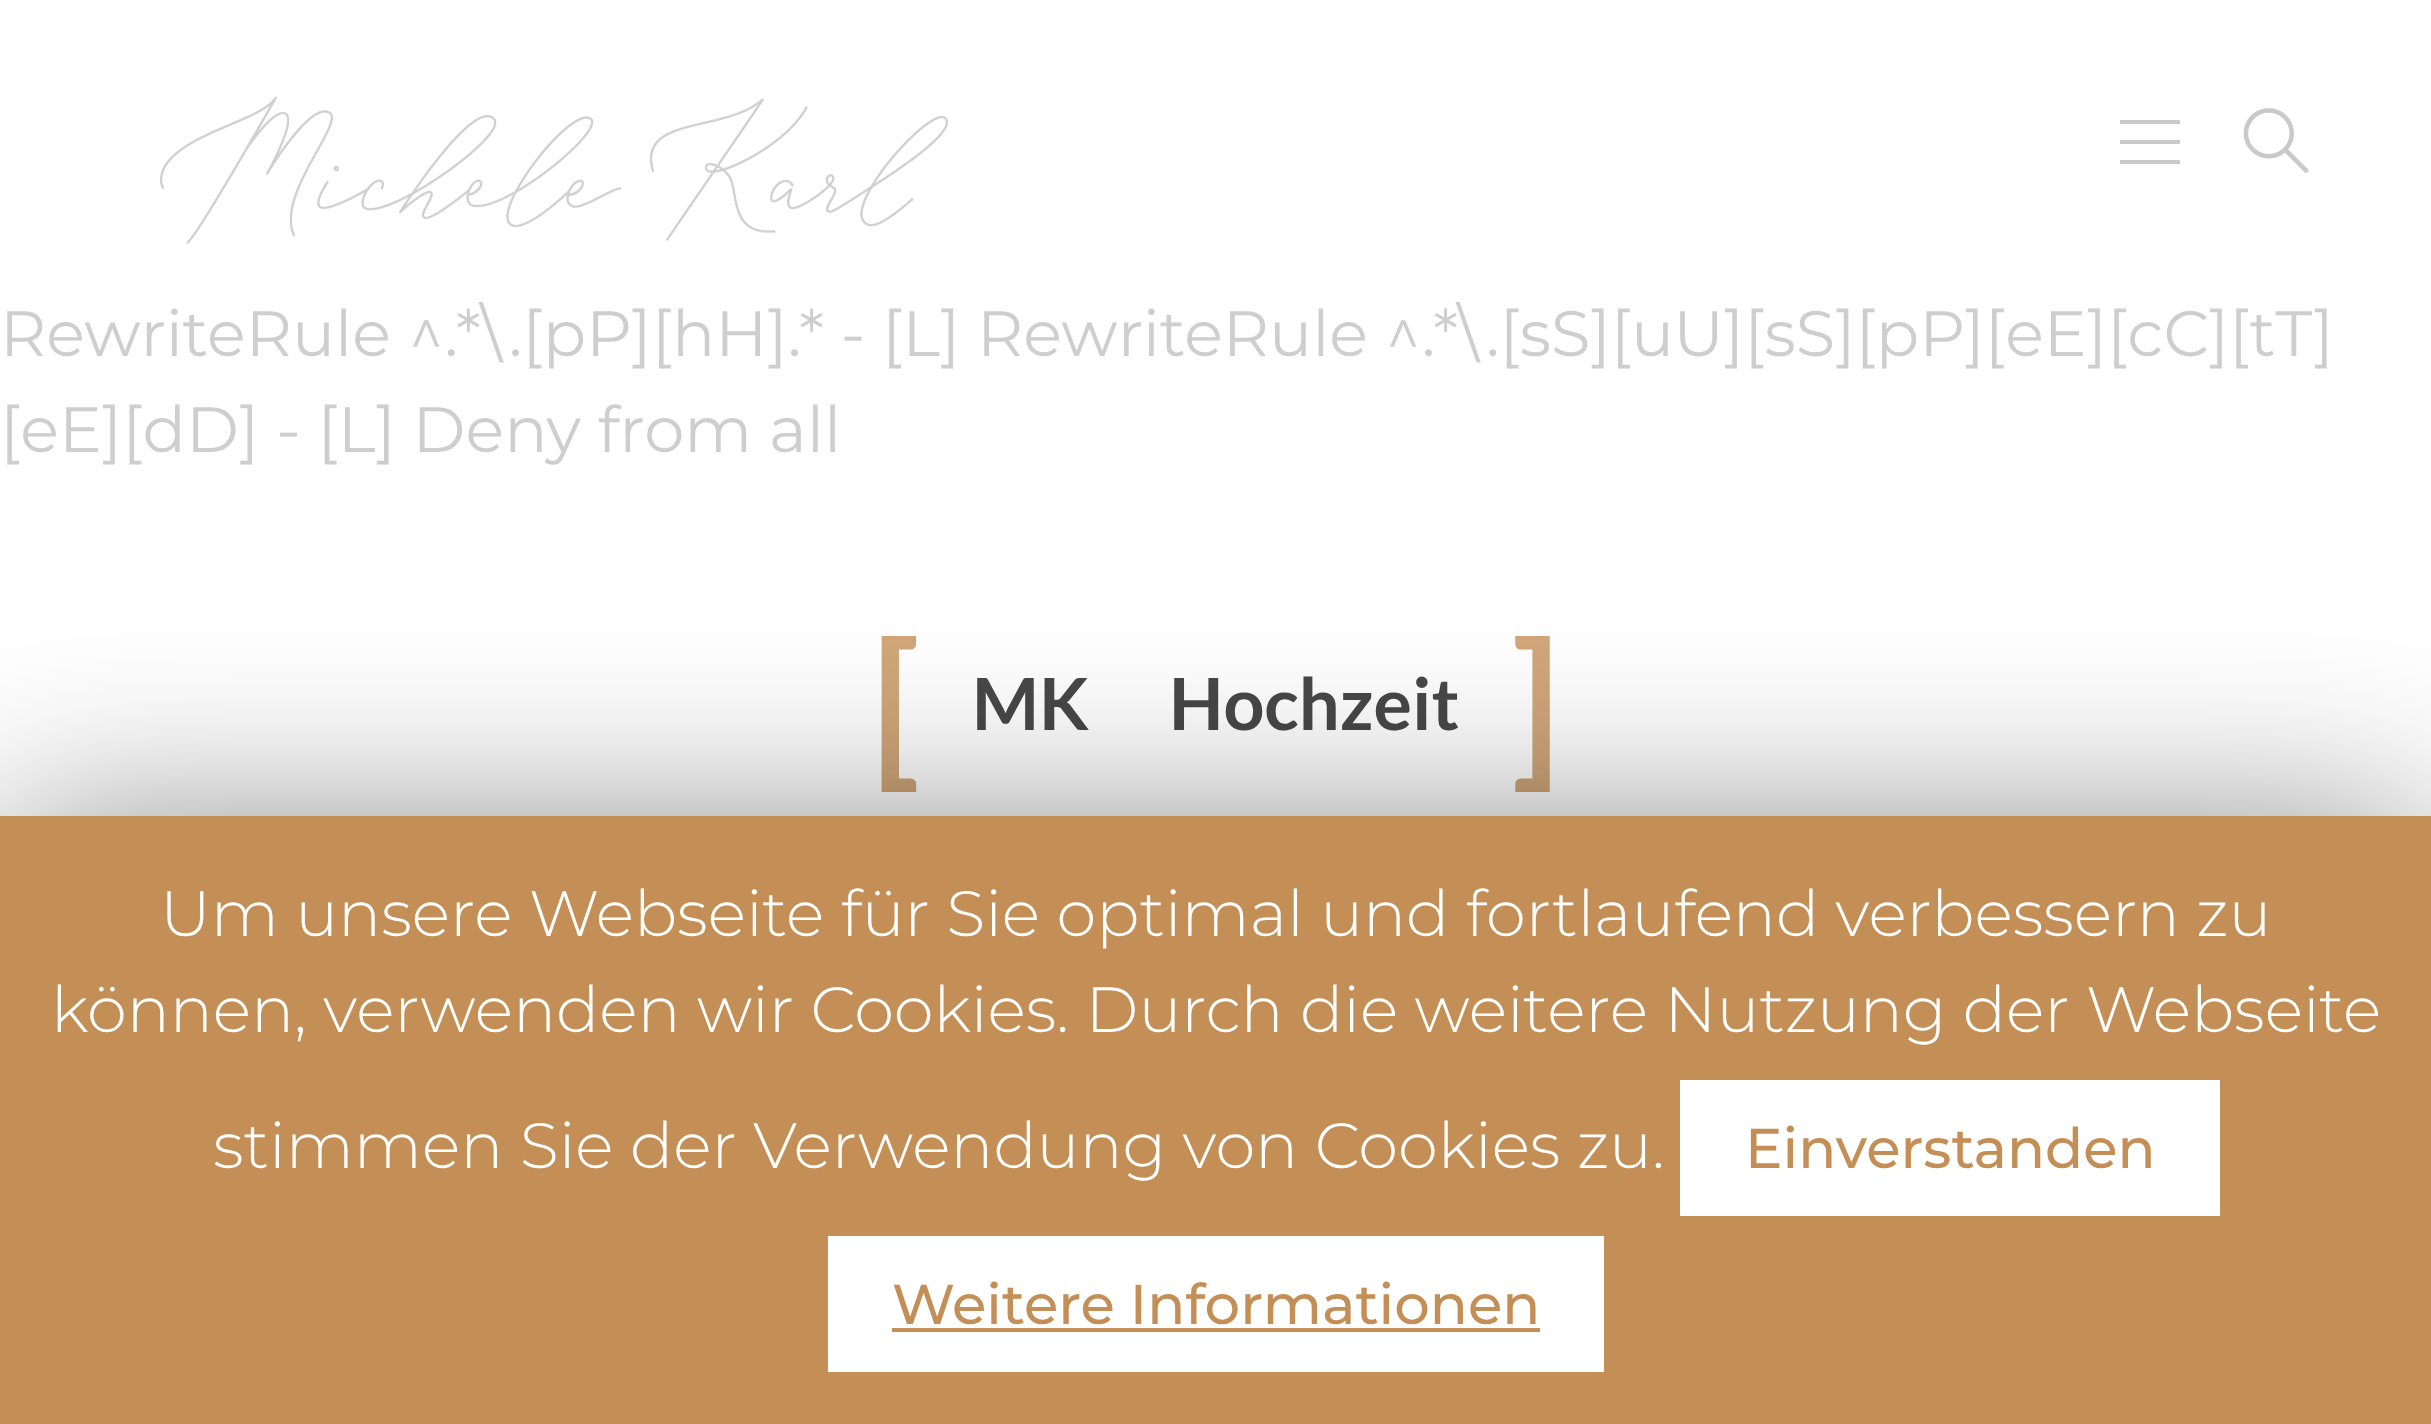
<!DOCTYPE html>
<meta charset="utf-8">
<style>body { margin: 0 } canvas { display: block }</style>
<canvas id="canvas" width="2431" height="1424"></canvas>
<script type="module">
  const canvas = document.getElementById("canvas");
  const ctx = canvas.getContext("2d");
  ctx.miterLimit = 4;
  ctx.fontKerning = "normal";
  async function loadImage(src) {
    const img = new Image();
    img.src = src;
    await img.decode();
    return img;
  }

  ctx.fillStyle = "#ffffff";
  ctx.fillRect(0, 0, 2431, 1424);
  ctx.font = "64px Montserrat";
  ctx.fillStyle = "#cecece";
  ctx.fillText("RewriteRule ^.*\\.[pP][hH].* - [L] RewriteRule ^.*\\.[sS][uU][sS][pP][eE][cC][tT]", 0, 356);
  ctx.fillText("[eE][dD] - [L] Deny from all", 0, 452);
  ctx.drawImage(await loadImage("img1.png"), 160, 96, 788, 148);
  ctx.fillStyle = "#c9c9c9";
  ctx.fillRect(2120, 120, 60, 4);
  ctx.fillRect(2120, 140, 60, 4);
  ctx.fillRect(2120, 160, 60, 4);
  ctx.drawImage(await loadImage("img2.png"), 2243, 108, 66, 65);
  ctx.font = "bold 168px Lato";
  ctx.fillStyle = "#d1a77a";
  ctx.fillText("[", 872, 766);
  ctx.font = "bold 72px Lato";
  ctx.fillStyle = "#484848";
  ctx.fillText("MK", 972, 730);
  ctx.fillText("Hochzeit", 1169, 730);
  ctx.font = "bold 168px Lato";
  ctx.fillStyle = "#d1a77a";
  ctx.fillText("]", 1509, 766);
  ctx.fillStyle = "rgba(0, 0, 0, 0.5)";
  ctx.filter = "blur(100px)";
  ctx.beginPath();
  ctx.rect(0, 836, 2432, 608);
  ctx.fill();
  ctx.filter = "none";
  ctx.fillStyle = "#c48f56";
  ctx.fillRect(0, 816, 2431, 608);
  ctx.font = "300 64px Montserrat";
  ctx.fillStyle = "#ffffff";
  ctx.fillText("Um unsere Webseite für Sie optimal und fortlaufend verbessern zu", 160, 936);
  ctx.fillText("können, verwenden wir Cookies. Durch die weitere Nutzung der Webseite", 51, 1032);
  ctx.fillText("stimmen Sie der Verwendung von Cookies zu.", 213, 1168);
  ctx.fillRect(1680, 1080, 540, 136);
  ctx.font = "500 56px Montserrat";
  ctx.fillStyle = "#c48f56";
  ctx.fillText("Einverstanden", 1745, 1168);
  ctx.fillStyle = "#ffffff";
  ctx.fillRect(828, 1236, 776, 136);
  ctx.fillStyle = "#c48f56";
  ctx.fillText("Weitere Informationen", 892, 1324);
  ctx.fillRect(892, 1328, 648, 4);
</script>
